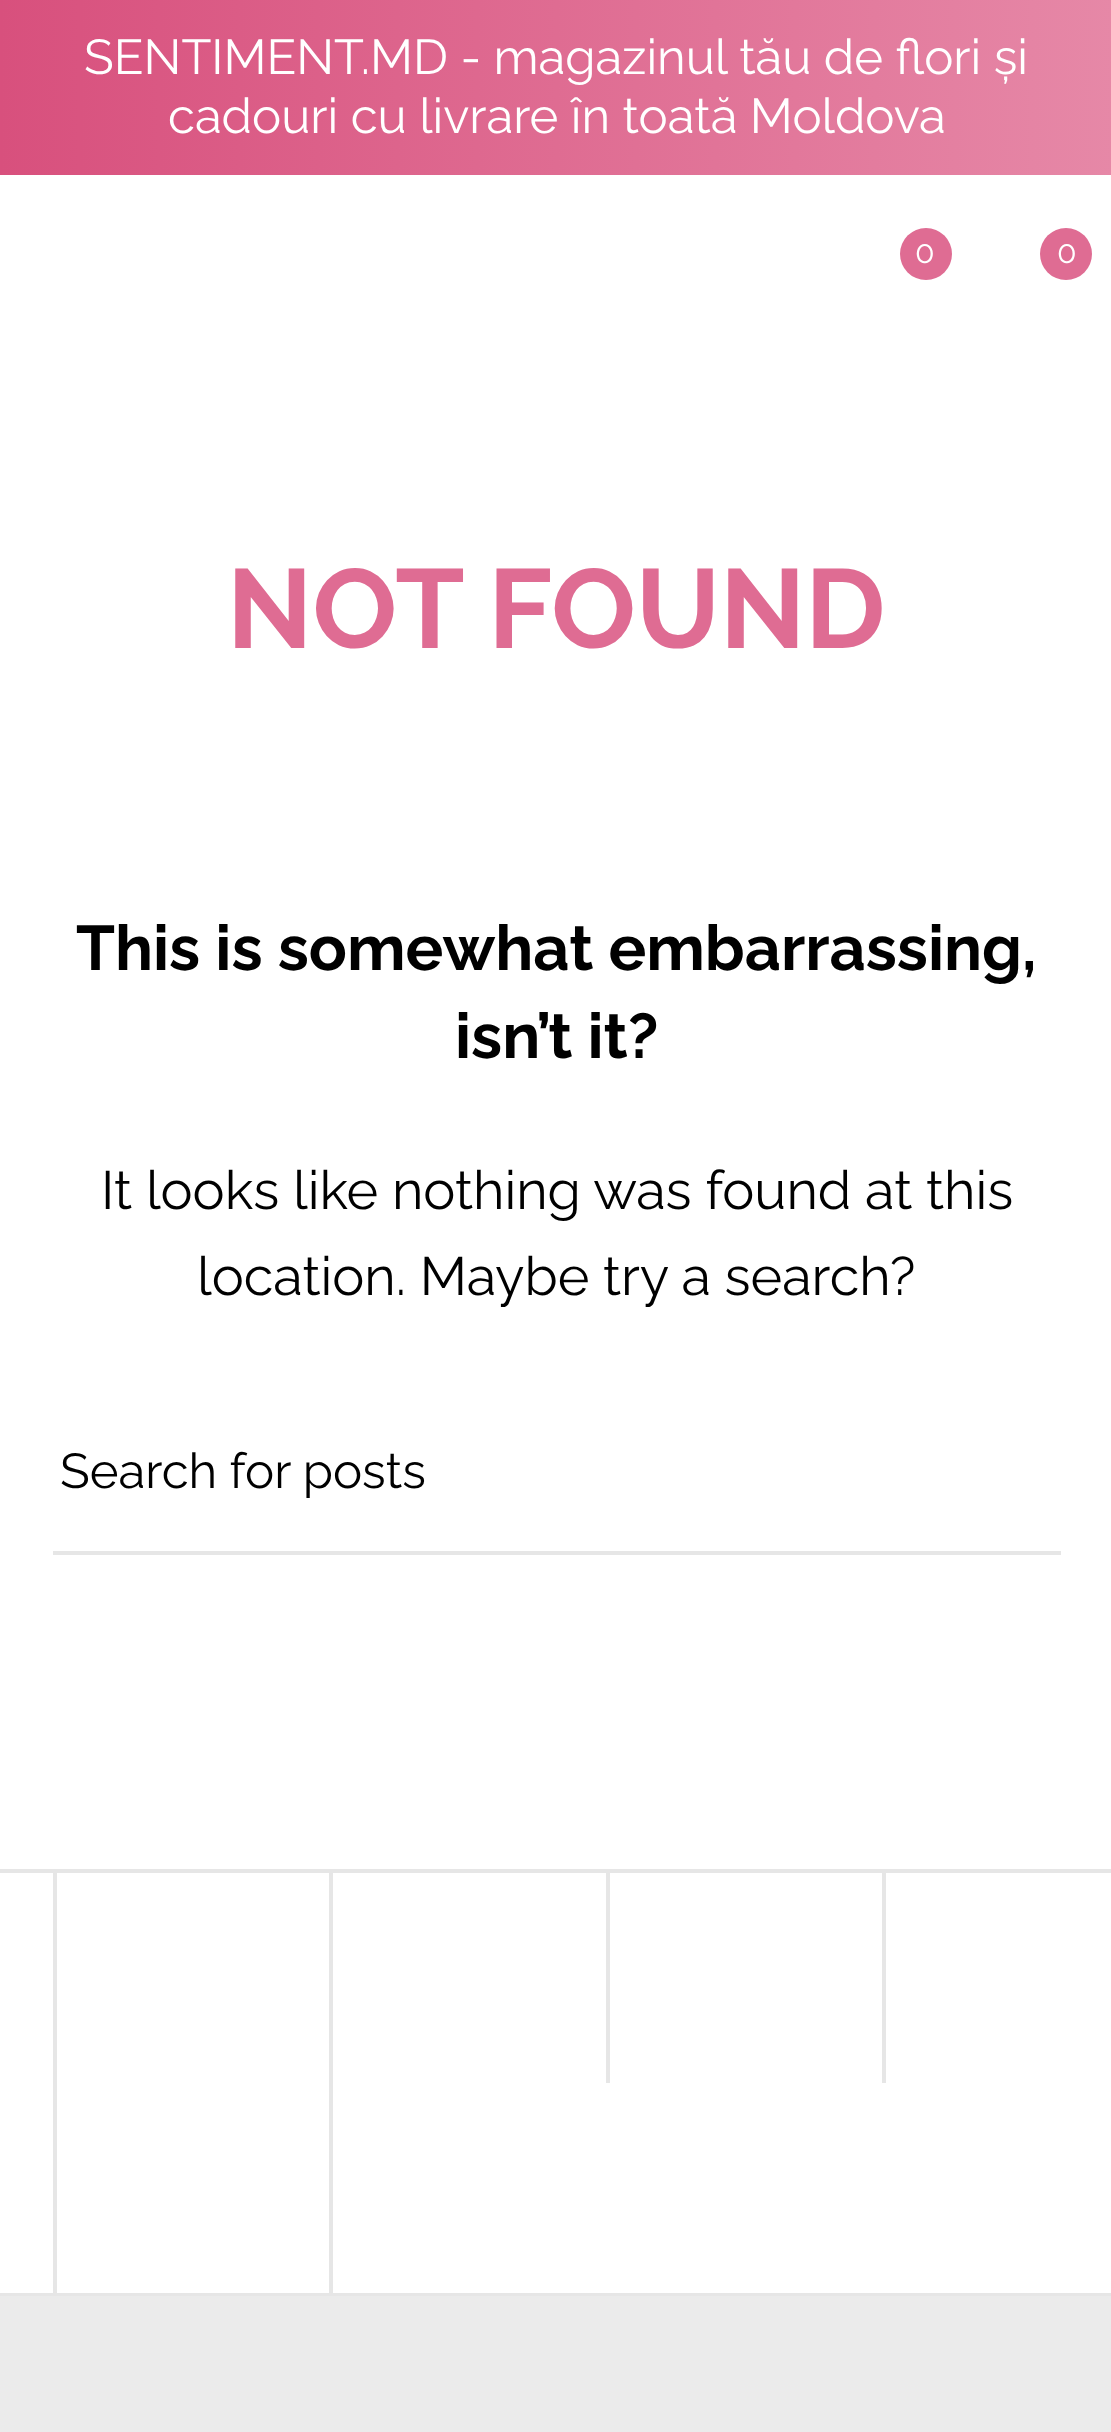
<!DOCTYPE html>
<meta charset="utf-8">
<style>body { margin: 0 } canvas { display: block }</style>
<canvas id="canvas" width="1111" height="2432"></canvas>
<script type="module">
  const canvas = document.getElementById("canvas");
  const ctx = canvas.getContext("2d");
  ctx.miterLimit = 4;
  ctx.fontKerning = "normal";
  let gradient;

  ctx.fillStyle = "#ffffff";
  ctx.fillRect(0, 0, 1111, 2432);
  gradient = ctx.createLinearGradient(0, 88, 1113, 87);
  gradient.addColorStop(0, "#d8507d");
  gradient.addColorStop(1, "#e688a7");
  ctx.fillStyle = gradient;
  ctx.fillRect(0, 0, 1111, 175);
  ctx.font = "49px Raleway";
  ctx.fillStyle = "#ffffff";
  ctx.fillText("SENTIMENT.MD - magazinul tău de flori și", 84, 74);
  ctx.fillText("cadouri cu livrare în toată Moldova", 168, 133);
  ctx.fillStyle = "#df6c93";
  ctx.beginPath();
  ctx.arc(926, 254, 26, 0, Math.PI * 2);
  ctx.fill();
  ctx.font = "32px Raleway";
  ctx.fillStyle = "#ffffff";
  ctx.fillText("0", 915, 263);
  ctx.fillStyle = "#df6c93";
  ctx.beginPath();
  ctx.arc(1066, 254, 26, 0, Math.PI * 2);
  ctx.fill();
  ctx.fillStyle = "#ffffff";
  ctx.fillText("0", 1057, 263);
  ctx.font = "bold 112px Raleway";
  ctx.fillStyle = "#df6c93";
  ctx.fillText("NOT FOUND", 227, 648);
  ctx.font = "bold 63px Raleway";
  ctx.fillStyle = "#000000";
  ctx.fillText("This is somewhat embarrassing,", 76, 970);
  ctx.fillText("isn’t it?", 455, 1058);
  ctx.font = "53.9px Raleway";
  ctx.fillText("It looks like nothing was found at this", 101, 1209);
  ctx.fillText("location. Maybe try a search?", 197, 1295);
  ctx.fillStyle = "#e6e6e6";
  ctx.fillRect(53, 1551, 1008, 4);
  ctx.save();
  ctx.beginPath();
  ctx.rect(60, 1442, 840, 56);
  ctx.clip();
  ctx.font = "49px Raleway";
  ctx.fillStyle = "#000000";
  ctx.fillText("Search for posts", 60, 1488);
  ctx.restore();
  ctx.fillRect(0, 1869, 1111, 4);
  ctx.fillRect(0, 2293, 1111, 3);
  ctx.fillRect(329, 1873, 4, 420);
  ctx.fillRect(53, 1873, 4, 420);
  ctx.fillRect(606, 1873, 4, 210);
  ctx.fillRect(882, 1873, 4, 210);
  ctx.fillStyle = "#ebebeb";
  ctx.fillRect(0, 2296, 1111, 136);
</script>
